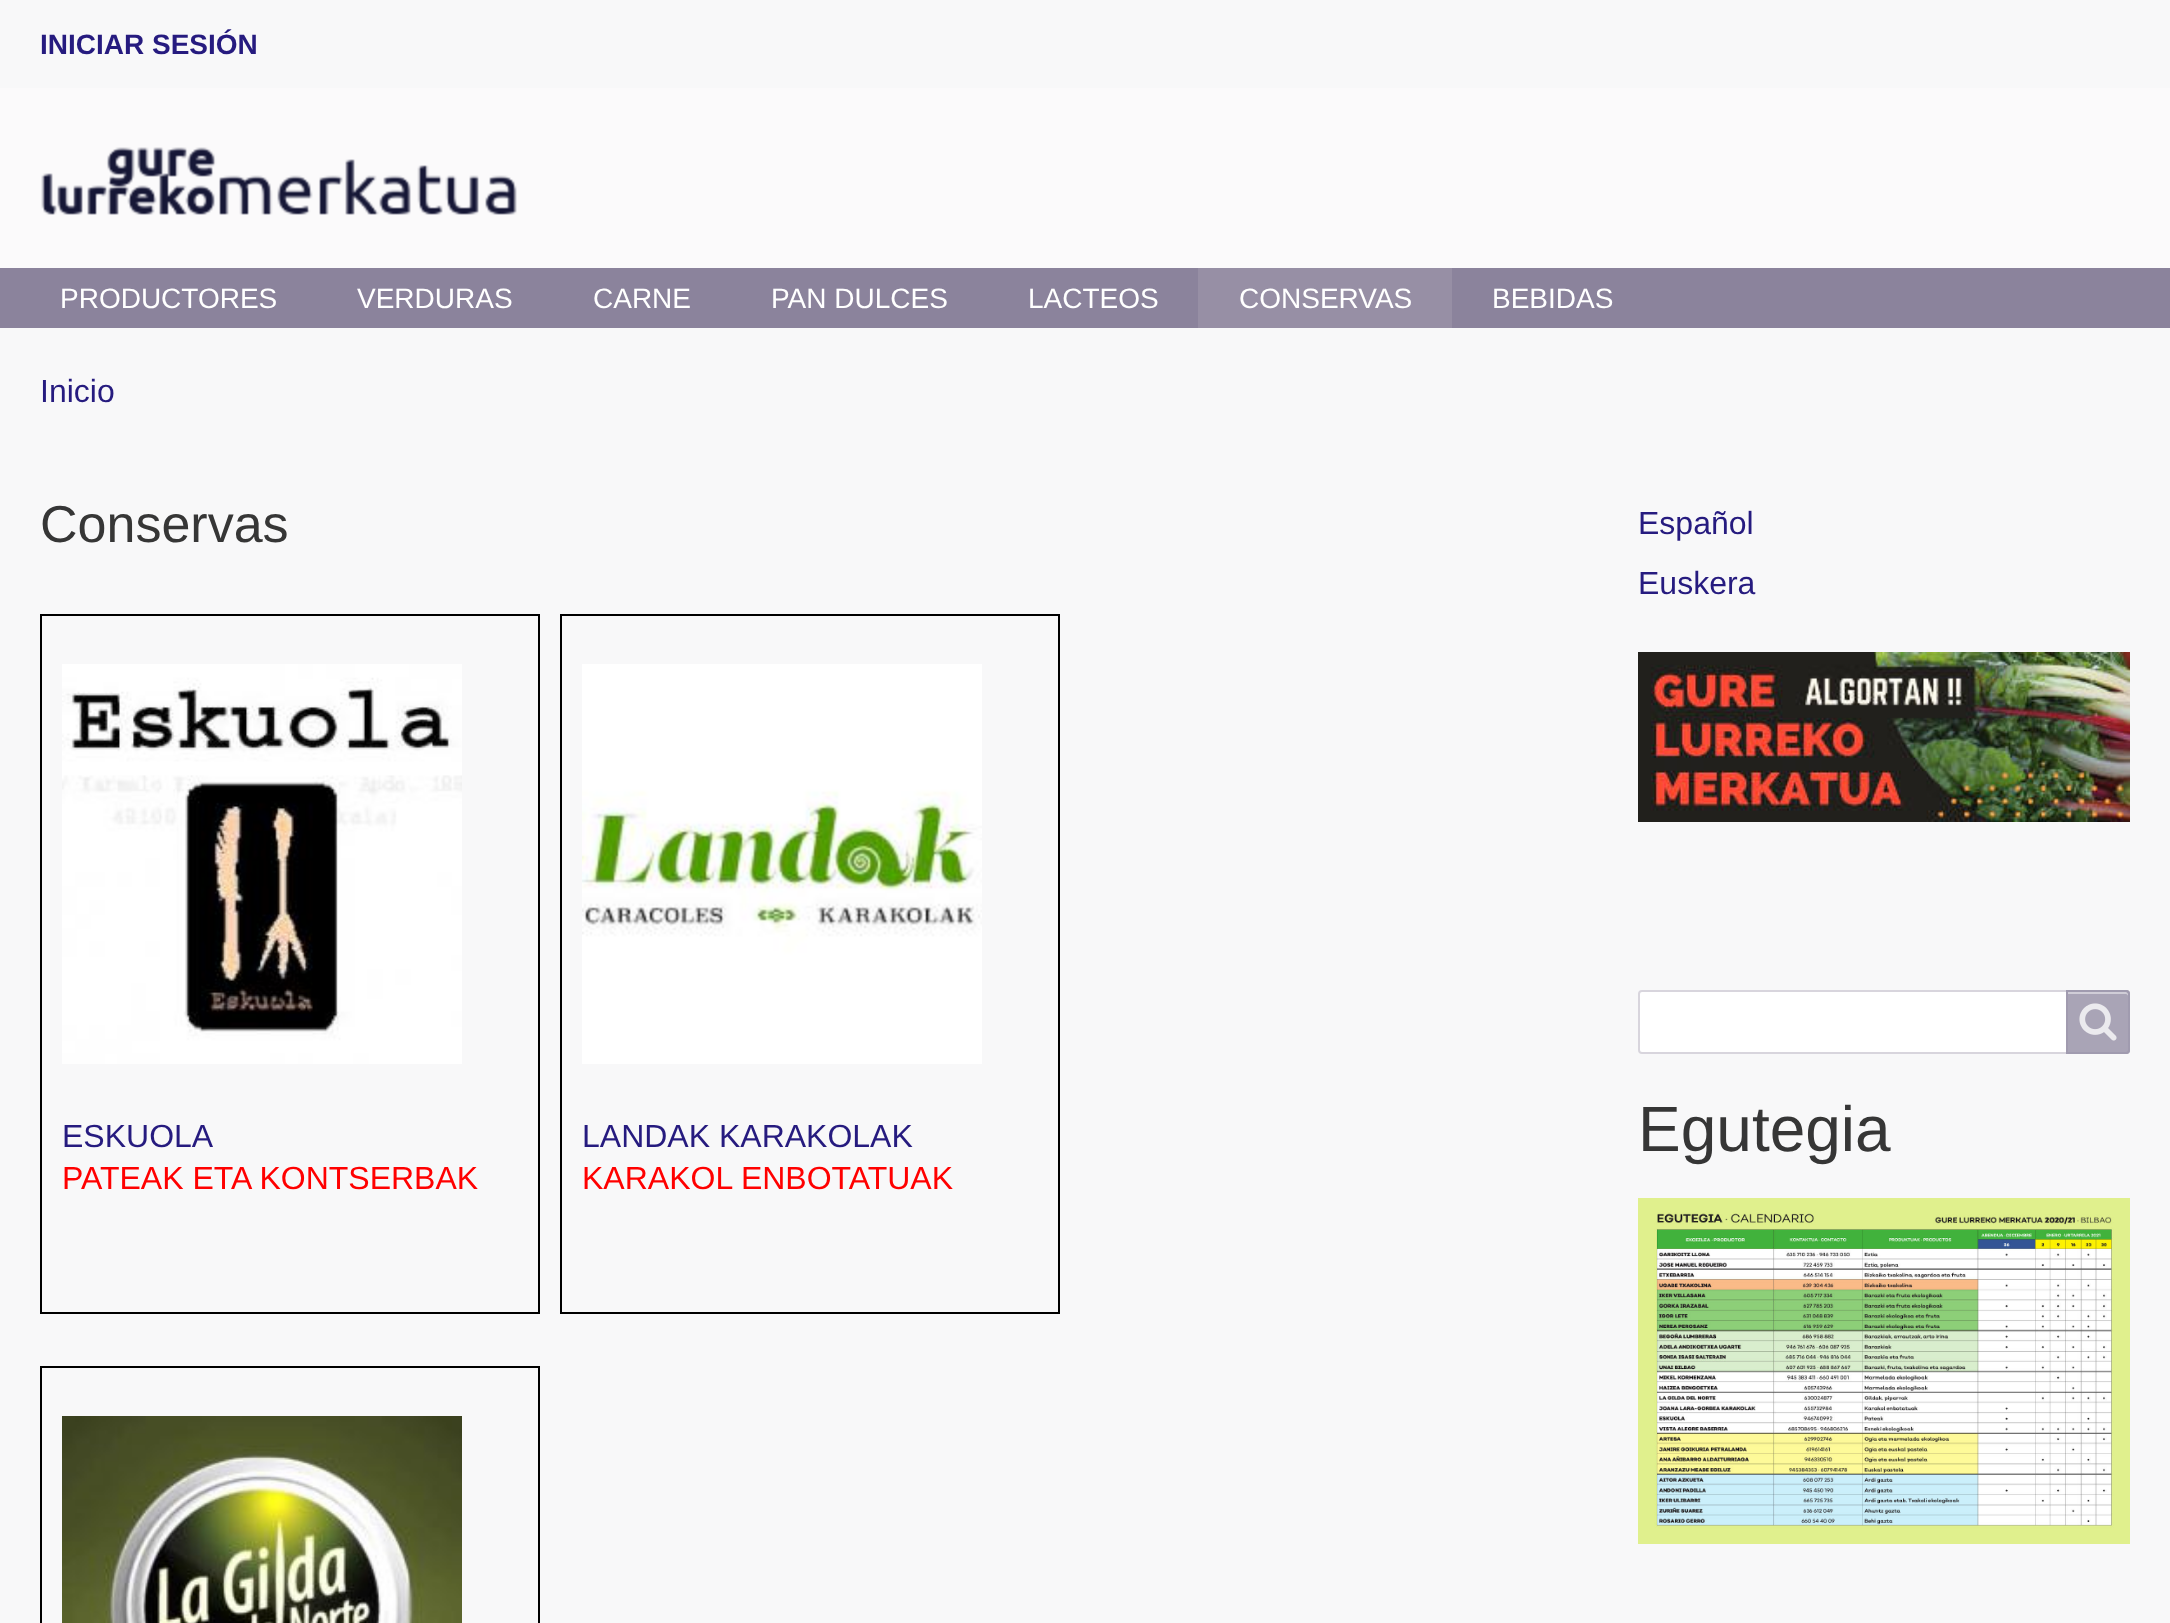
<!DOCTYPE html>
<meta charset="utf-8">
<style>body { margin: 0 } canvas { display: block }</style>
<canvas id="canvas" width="2170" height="1623"></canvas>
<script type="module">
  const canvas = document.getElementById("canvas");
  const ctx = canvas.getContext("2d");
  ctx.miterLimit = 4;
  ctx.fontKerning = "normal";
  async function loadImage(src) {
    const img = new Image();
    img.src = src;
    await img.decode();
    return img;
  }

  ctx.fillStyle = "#f8f8f9";
  ctx.fillRect(0, 0, 2170, 1623);
  ctx.font = "bold 28px Liberation Sans";
  ctx.fillStyle = "#261b7f";
  ctx.fillText("INICIAR SESIÓN", 40, 54);
  ctx.fillStyle = "#fbfafb";
  ctx.fillRect(0, 88, 2170, 180);
  ctx.drawImage(await loadImage("img1.png"), 41, 147, 476, 68);
  ctx.fillStyle = "#8b839c";
  ctx.fillRect(0, 268, 2170, 60);
  ctx.font = "28px Liberation Sans";
  ctx.fillStyle = "#ffffff";
  ctx.fillText("PRODUCTORES", 60, 308);
  ctx.fillText("VERDURAS", 357, 308);
  ctx.fillText("CARNE", 593, 308);
  ctx.fillText("PAN DULCES", 771, 308);
  ctx.fillText("LACTEOS", 1028, 308);
  ctx.fillStyle = "#978fa5";
  ctx.fillRect(1198, 268, 254, 60);
  ctx.fillStyle = "#ffffff";
  ctx.fillText("CONSERVAS", 1239, 308);
  ctx.fillText("BEBIDAS", 1492, 308);
  ctx.font = "32px Liberation Sans";
  ctx.fillStyle = "#261b7f";
  ctx.fillText("Inicio", 40, 402);
  ctx.font = "52px Liberation Sans";
  ctx.fillStyle = "#363636";
  ctx.fillText("Conservas", 40, 542);
  ctx.strokeStyle = "#000000";
  ctx.lineWidth = 2;
  ctx.strokeRect(41, 615, 498, 698);
  ctx.drawImage(await loadImage("img2.png"), 62, 664, 400, 400);
  ctx.font = "32px Liberation Sans";
  ctx.fillStyle = "#261b7f";
  ctx.fillText("ESKUOLA", 62, 1147);
  ctx.fillStyle = "#ff0000";
  ctx.fillText("PATEAK ETA KONTSERBAK", 62, 1189);
  ctx.strokeRect(561, 615, 498, 698);
  ctx.drawImage(await loadImage("img3.png"), 582, 664, 400, 400);
  ctx.fillStyle = "#261b7f";
  ctx.fillText("LANDAK KARAKOLAK", 582, 1147);
  ctx.fillStyle = "#ff0000";
  ctx.fillText("KARAKOL ENBOTATUAK", 582, 1189);
  ctx.strokeRect(41, 1367, 498, 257);
  ctx.drawImage(await loadImage("img4.png"), 62, 1416, 400, 207);
  ctx.fillStyle = "#261b7f";
  ctx.fillText("Español", 1638, 534);
  ctx.fillText("Euskera", 1638, 594);
  ctx.drawImage(await loadImage("img5.png"), 1638, 652, 492, 170);
  ctx.fillStyle = "#ffffff";
  ctx.beginPath();
  ctx.roundRect(1639, 991, 490, 62, 3);
  ctx.fill();
  ctx.strokeStyle = "#d8d5dd";
  ctx.stroke();
  ctx.fillStyle = "rgba(160, 154, 174, 0.9)";
  ctx.beginPath();
  ctx.roundRect(2066, 990, 64, 64, [0, 4, 4, 0]);
  ctx.fill();
  ctx.drawImage(await loadImage("img6.png"), 2079, 1003, 38, 38);
  ctx.fillStyle = "#d0cdd7";
  ctx.beginPath();
  ctx.moveTo(2068, 994);
  ctx.lineTo(2126, 994);
  ctx.bezierCurveTo(2127, 994, 2128, 995, 2128, 996);
  ctx.lineTo(2128, 994);
  ctx.bezierCurveTo(2128, 993, 2127, 992, 2126, 992);
  ctx.lineTo(2068, 992);
  ctx.closePath();
  ctx.fill();
  ctx.beginPath();
  ctx.roundRect(2067, 991, 62, 62, [0, 3, 3, 0]);
  ctx.strokeStyle = "rgba(160, 154, 174, 0.9)";
  ctx.stroke();
  ctx.font = "64px Liberation Sans";
  ctx.fillStyle = "#363636";
  ctx.fillText("Egutegia", 1638, 1151);
  ctx.drawImage(await loadImage("img7.png"), 1638, 1198, 492, 346);
</script>
